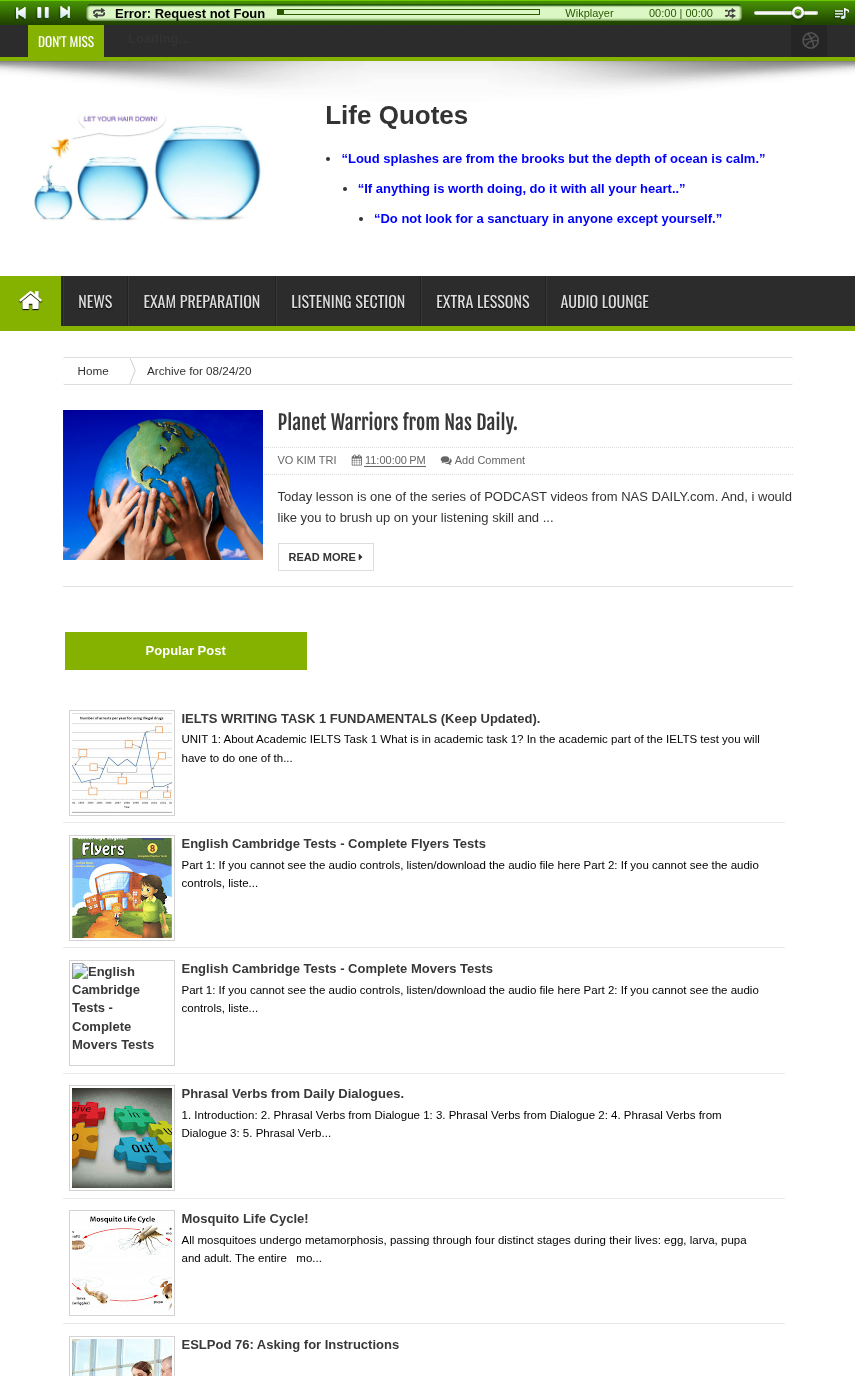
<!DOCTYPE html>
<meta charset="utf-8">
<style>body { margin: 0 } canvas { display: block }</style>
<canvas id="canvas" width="855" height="1376"></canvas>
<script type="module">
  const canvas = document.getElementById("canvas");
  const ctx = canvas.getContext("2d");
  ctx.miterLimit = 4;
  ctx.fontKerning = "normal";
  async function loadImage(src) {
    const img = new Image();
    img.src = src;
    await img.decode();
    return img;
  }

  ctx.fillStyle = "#ffffff";
  ctx.fillRect(0, 0, 855, 1376);
  ctx.drawImage(await loadImage("img1.png"), 0, 0, 855, 1376);
</script>
